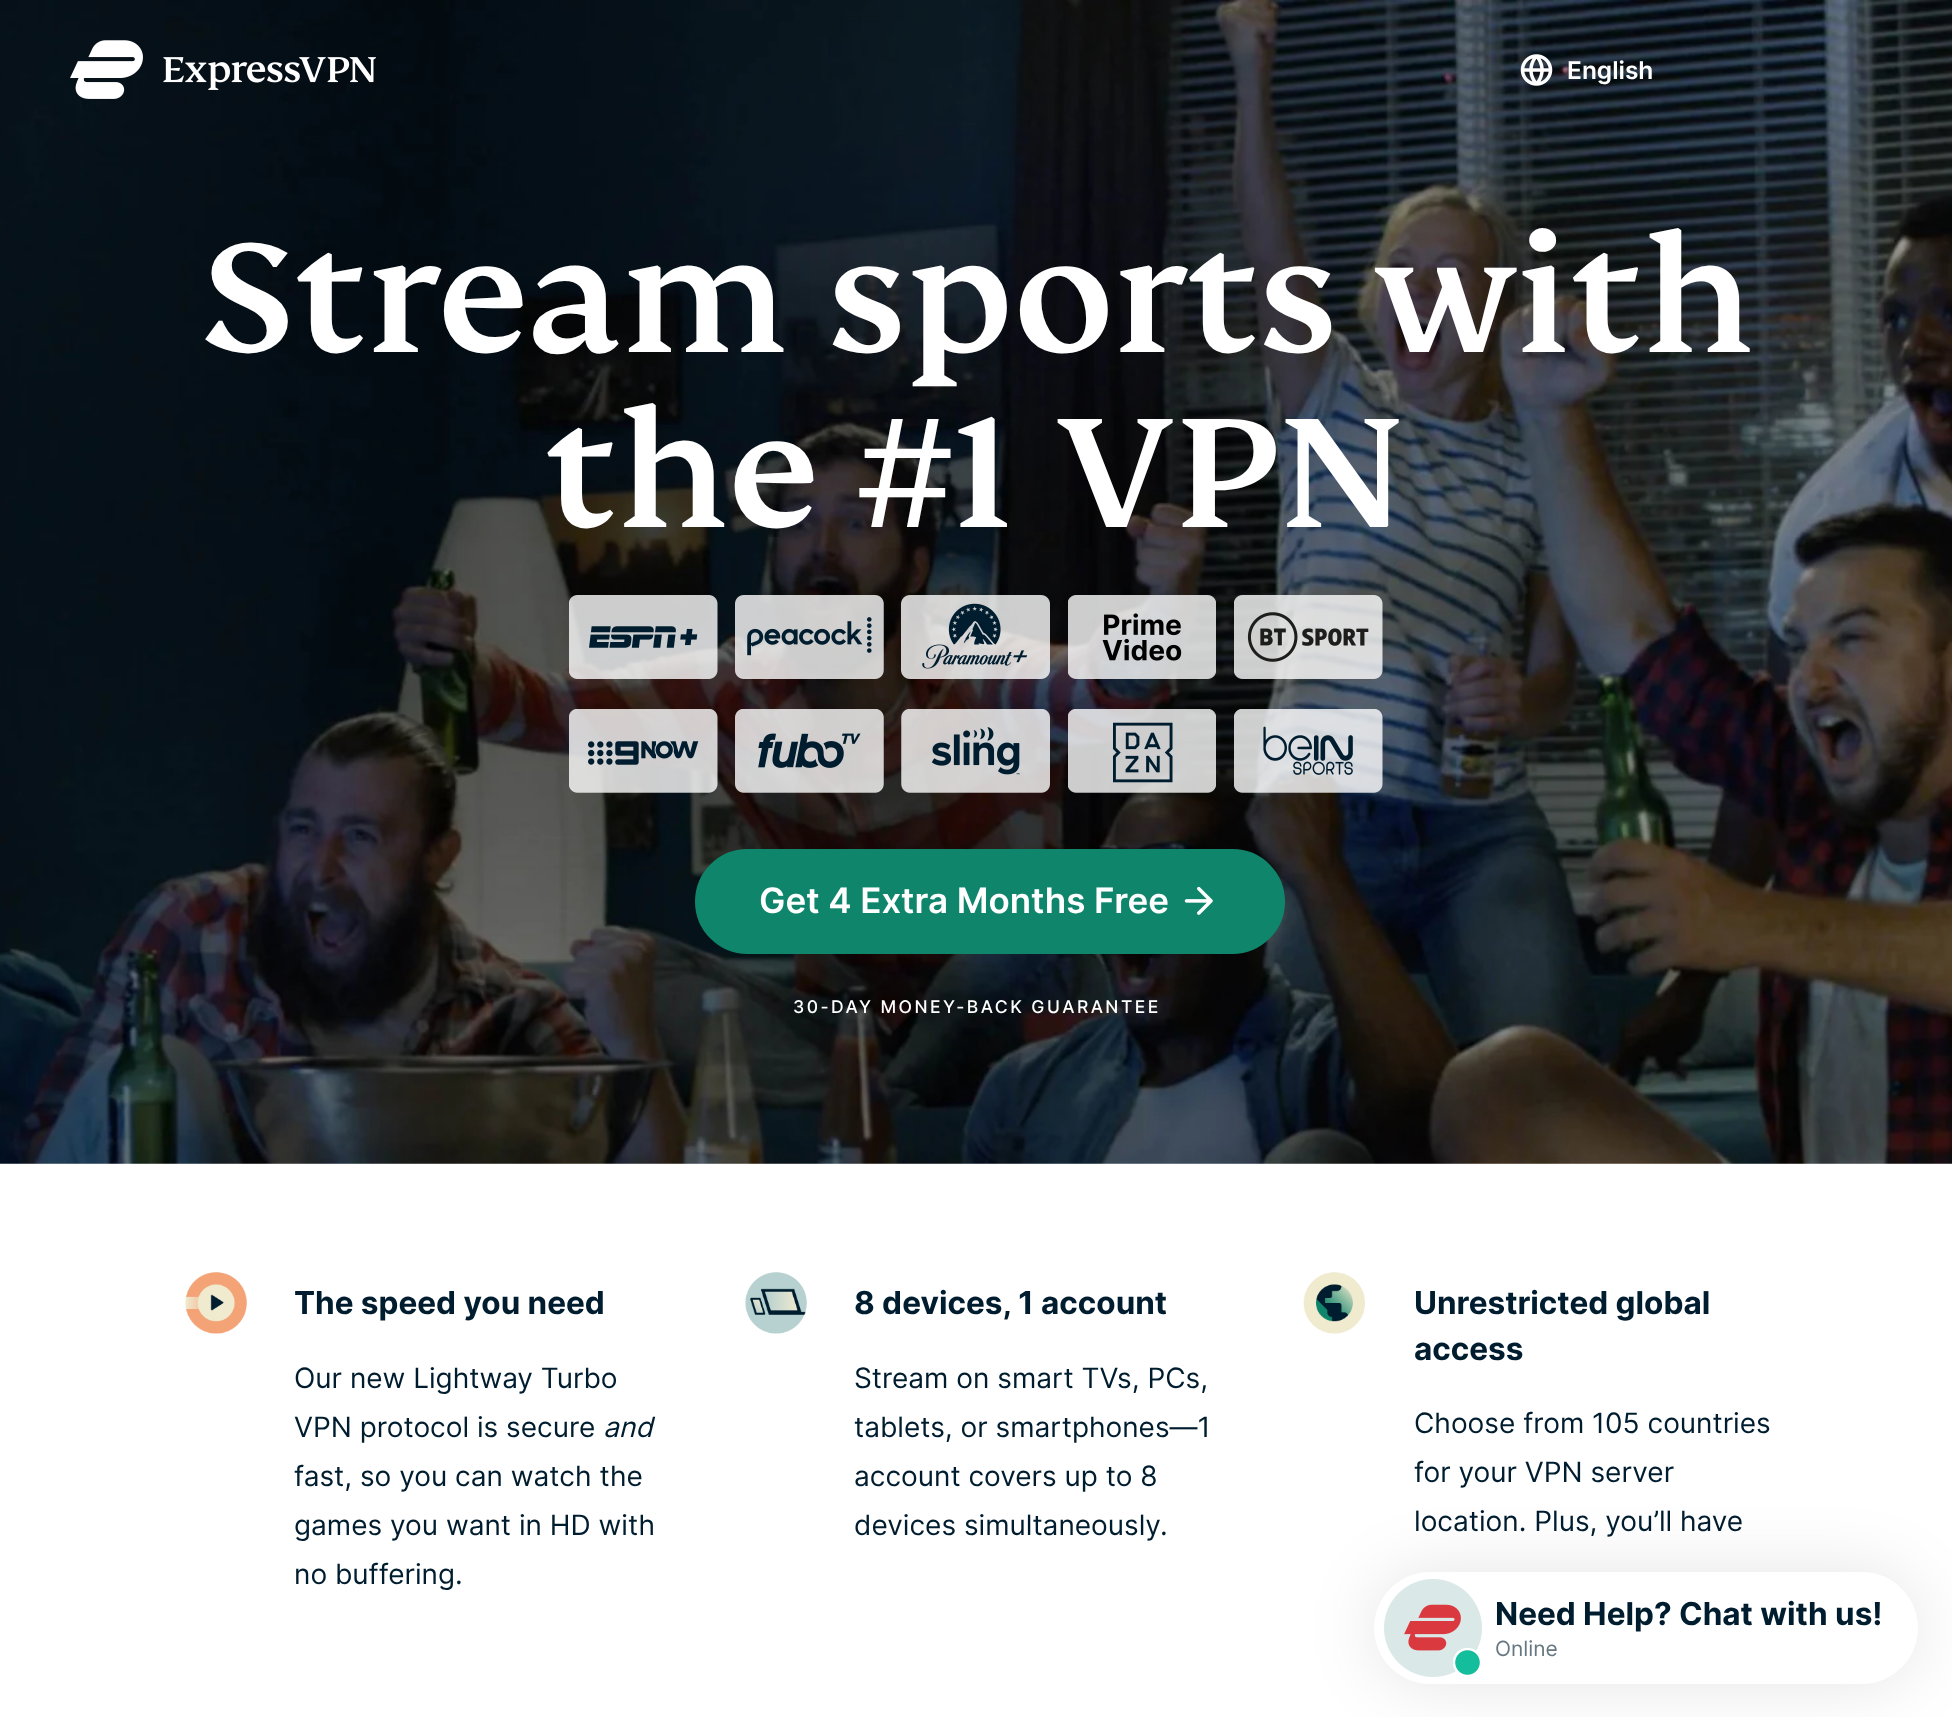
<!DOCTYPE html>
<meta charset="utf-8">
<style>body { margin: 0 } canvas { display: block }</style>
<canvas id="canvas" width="1952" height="1717"></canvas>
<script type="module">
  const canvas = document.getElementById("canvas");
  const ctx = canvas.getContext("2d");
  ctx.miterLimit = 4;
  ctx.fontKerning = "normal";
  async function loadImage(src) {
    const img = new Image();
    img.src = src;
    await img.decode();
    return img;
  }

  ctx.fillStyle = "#ffffff";
  ctx.fillRect(0, 0, 1952, 1717);
  ctx.drawImage(await loadImage("img3.png"), 0, 0, 1952, 1164);
  ctx.drawImage(await loadImage("img1.png"), 70, 40, 306, 59);
  ctx.drawImage(await loadImage("img2.png"), 1520, 54, 33, 32);
  ctx.font = "600 24.5px Inter";
  ctx.fillText("English", 1567, 79);
  ctx.font = "500 171.5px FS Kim";
  ctx.fillText("Stream sports", 199, 352);
  ctx.fillText("with", 1377, 352);
  ctx.fillText("the #1 VPN", 546, 527);
  ctx.drawImage(await loadImage("img4.png"), 569, 595, 149, 84);
  ctx.drawImage(await loadImage("img5.png"), 735, 595, 149, 84);
  ctx.drawImage(await loadImage("img6.png"), 901, 595, 149, 84);
  ctx.drawImage(await loadImage("img7.png"), 1068, 595, 148, 84);
  ctx.drawImage(await loadImage("img8.png"), 1234, 595, 149, 84);
  ctx.drawImage(await loadImage("img9.png"), 569, 709, 149, 84);
  ctx.drawImage(await loadImage("img10.png"), 735, 709, 149, 84);
  ctx.drawImage(await loadImage("img11.png"), 901, 709, 149, 84);
  ctx.drawImage(await loadImage("img12.png"), 1068, 709, 148, 84);
  ctx.drawImage(await loadImage("img13.png"), 1234, 709, 149, 84);
  ctx.fillStyle = "#0f866c";
  ctx.beginPath();
  ctx.roundRect(697, 851, 586, 101, 50.5);
  ctx.fill();
  ctx.strokeStyle = "#0f866c";
  ctx.lineWidth = 4;
  ctx.stroke();
  ctx.font = "600 35px Inter";
  ctx.fillStyle = "#ffffff";
  ctx.fillText("Get 4 Extra Months Free", 759, 913);
  ctx.drawImage(await loadImage("img14.png"), 1184, 886, 29, 29);
  ctx.letterSpacing = "2.45px";
  ctx.font = "500 17.5px Inter";
  ctx.fillText("30-DAY MONEY-BACK GUARANTEE", 793, 1013);
  ctx.drawImage(await loadImage("img15.png"), 185, 1272, 62, 62);
  ctx.letterSpacing = "0px";
  ctx.font = "bold 31.5px Inter";
  ctx.fillStyle = "#001d2f";
  ctx.fillText("The speed you need", 294, 1314);
  ctx.font = "28px Inter";
  ctx.fillText("Our new Lightway Turbo", 294, 1388);
  ctx.fillText("VPN protocol is secure", 294, 1437);
  ctx.font = "italic 28px Inter";
  ctx.fillText("and", 603, 1437);
  ctx.font = "28px Inter";
  ctx.fillText("fast, so you can watch the", 294, 1486);
  ctx.fillText("games you want in HD with", 294, 1535);
  ctx.fillText("no buffering.", 294, 1584);
  ctx.drawImage(await loadImage("img16.png"), 745, 1272, 62, 62);
  ctx.font = "bold 31.5px Inter";
  ctx.fillText("8 devices, 1 account", 854, 1314);
  ctx.font = "28px Inter";
  ctx.fillText("Stream on smart TVs, PCs,", 854, 1388);
  ctx.fillText("tablets, or smartphones—1", 854, 1437);
  ctx.fillText("account covers up to 8", 854, 1486);
  ctx.fillText("devices simultaneously.", 854, 1535);
  ctx.drawImage(await loadImage("img17.png"), 1303, 1272, 62, 62);
  ctx.font = "bold 31.5px Inter";
  ctx.fillText("Unrestricted global", 1414, 1314);
  ctx.fillText("access", 1414, 1360);
  ctx.font = "28px Inter";
  ctx.fillText("Choose from 105 countries", 1414, 1433);
  ctx.fillText("for your VPN server", 1414, 1482);
  ctx.fillText("location. Plus, you’ll have", 1414, 1531);
  ctx.fillStyle = "rgba(0, 0, 0, 0.1)";
  ctx.filter = "blur(34.5px)";
  ctx.beginPath();
  ctx.roundRect(1374, 1572, 544, 112, 56);
  ctx.fill();
  ctx.filter = "none";
  ctx.fillStyle = "#ffffff";
  ctx.beginPath();
  ctx.roundRect(1374, 1572, 544, 112, 56);
  ctx.fill();
  ctx.drawImage(await loadImage("img18.png"), 1384, 1579, 98, 98);
  ctx.font = "bold 31.5px Inter";
  ctx.fillStyle = "#001d2f";
  ctx.fillText("Need Help? Chat with us!", 1495, 1625);
  ctx.font = "21px Inter";
  ctx.fillStyle = "#667782";
  ctx.fillText("Online", 1495, 1656);
</script>
